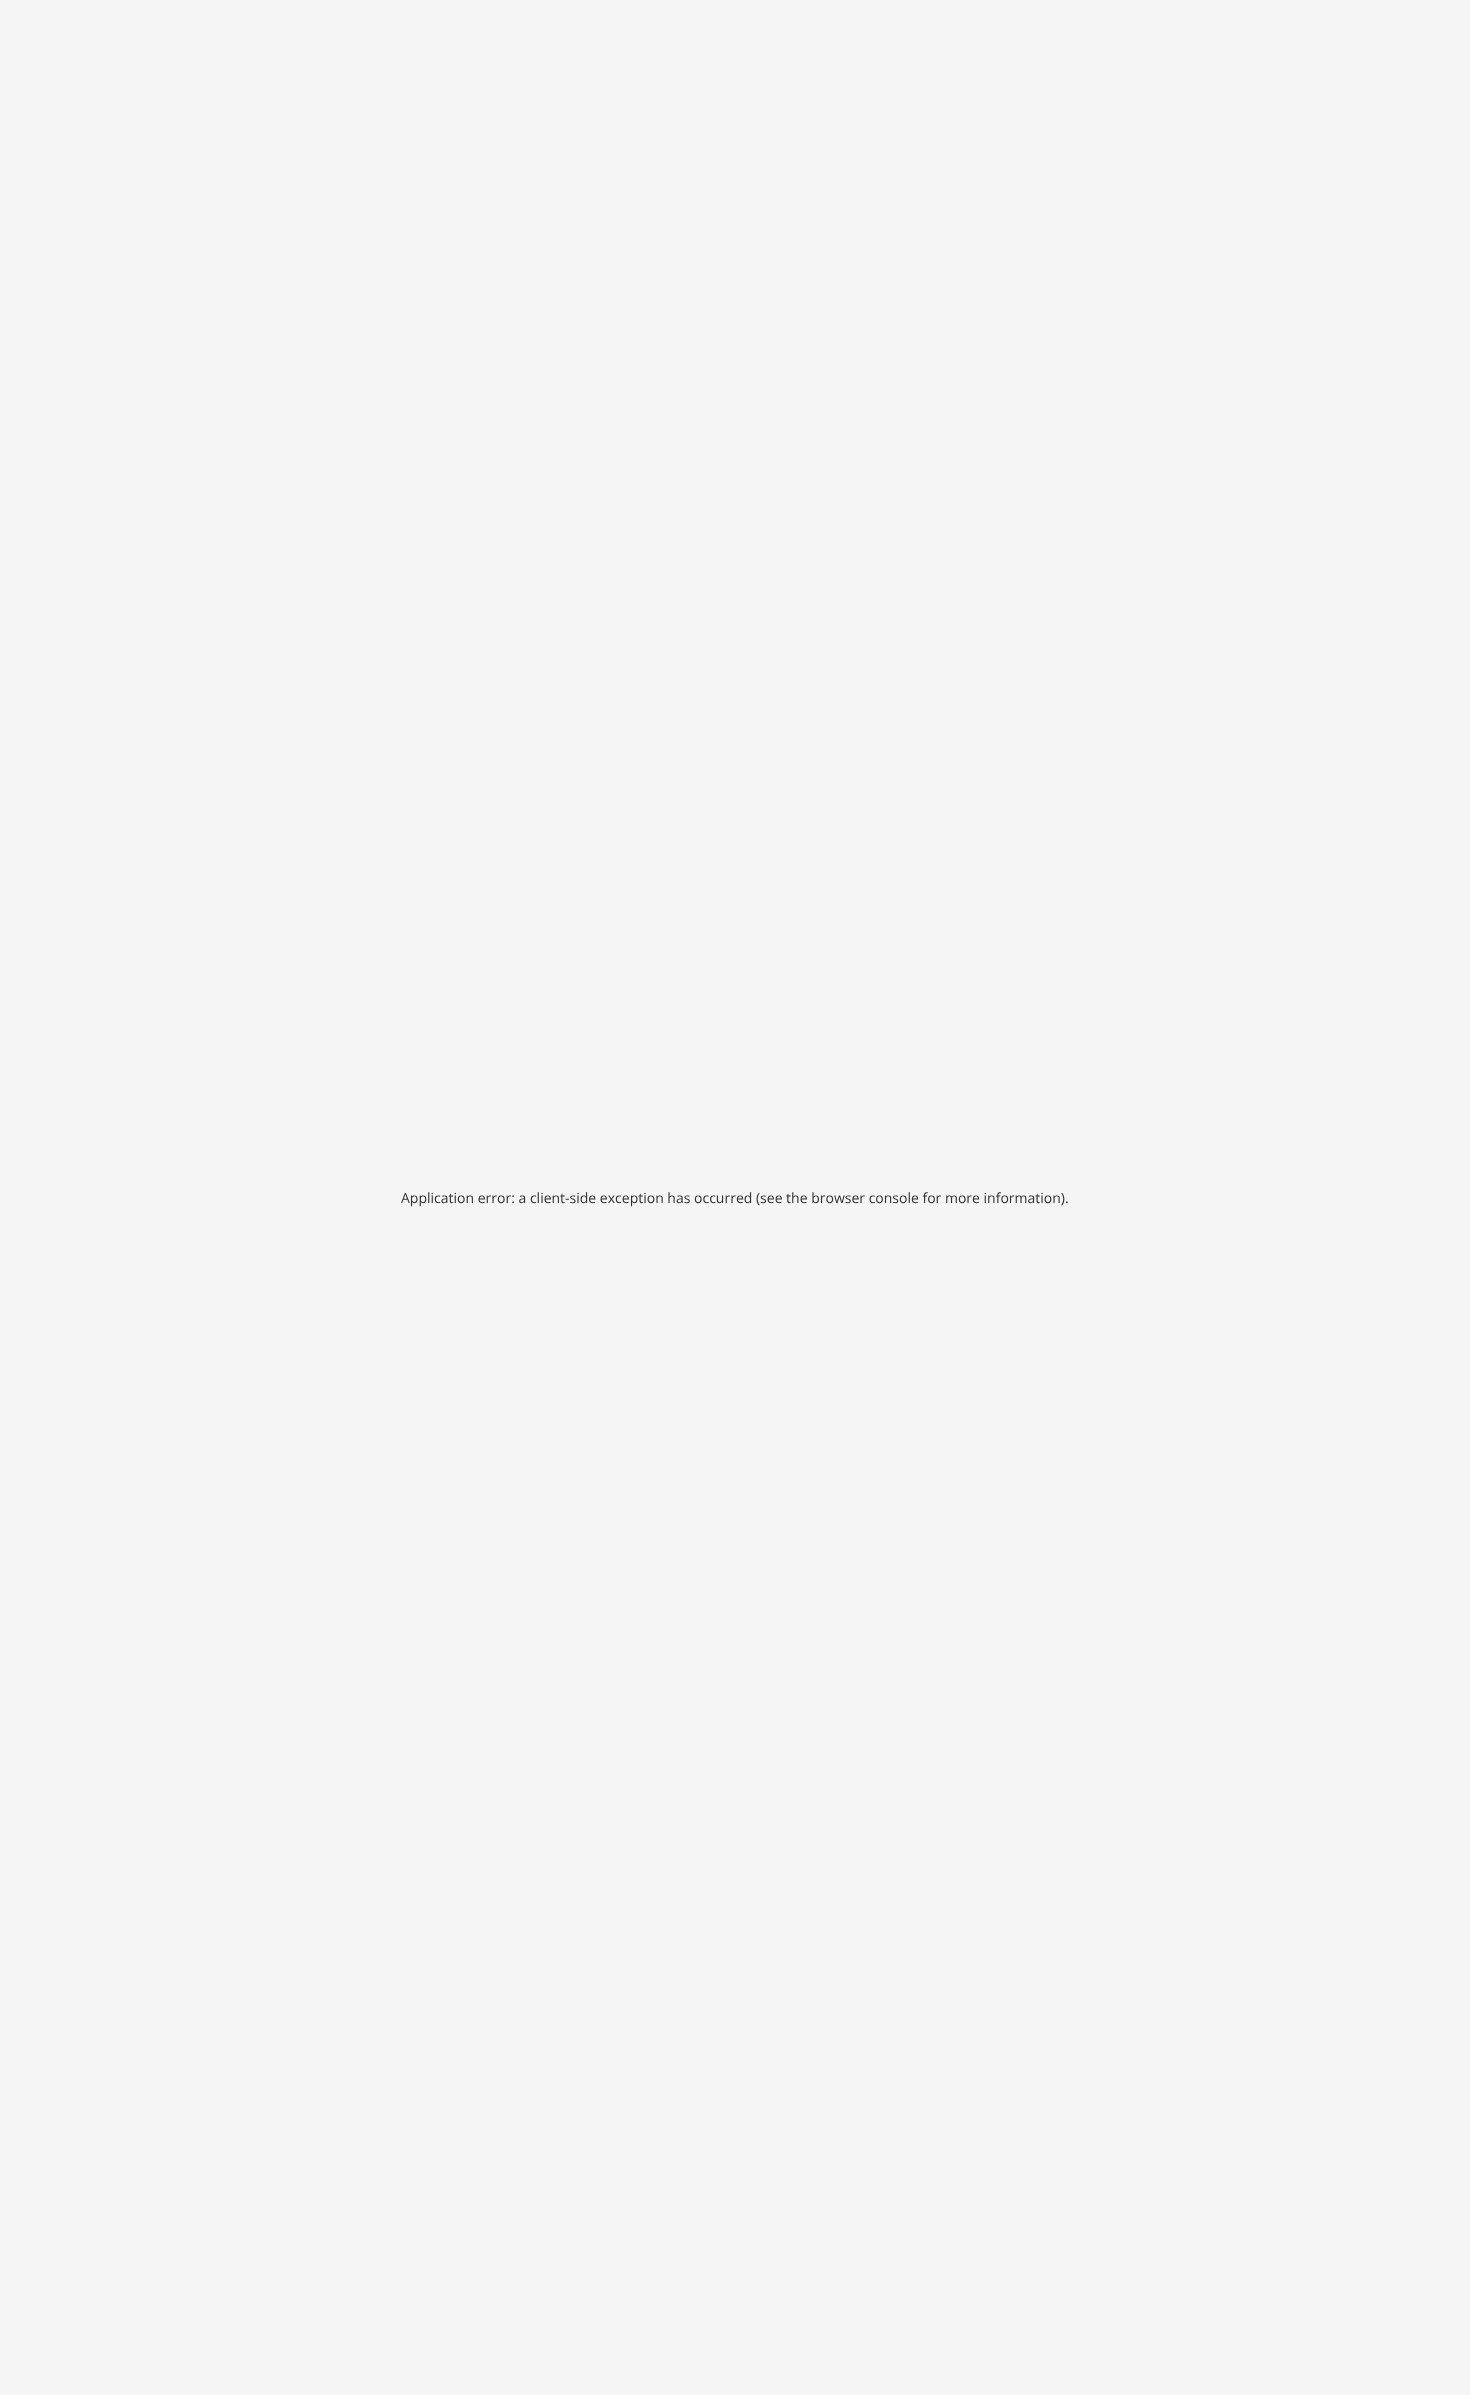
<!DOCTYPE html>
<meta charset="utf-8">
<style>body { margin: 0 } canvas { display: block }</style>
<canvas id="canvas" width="1470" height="2395"></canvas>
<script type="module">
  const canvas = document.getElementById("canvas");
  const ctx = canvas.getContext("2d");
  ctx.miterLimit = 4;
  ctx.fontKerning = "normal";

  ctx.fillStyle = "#f5f5f5";
  ctx.fillRect(0, 0, 1470, 2395);
  ctx.font = "14px Open Sans";
  ctx.fillStyle = "#333333";
  ctx.fillText("Application error: a client-side exception has occurred (see the browser console for more information).", 401, 1203);
</script>
